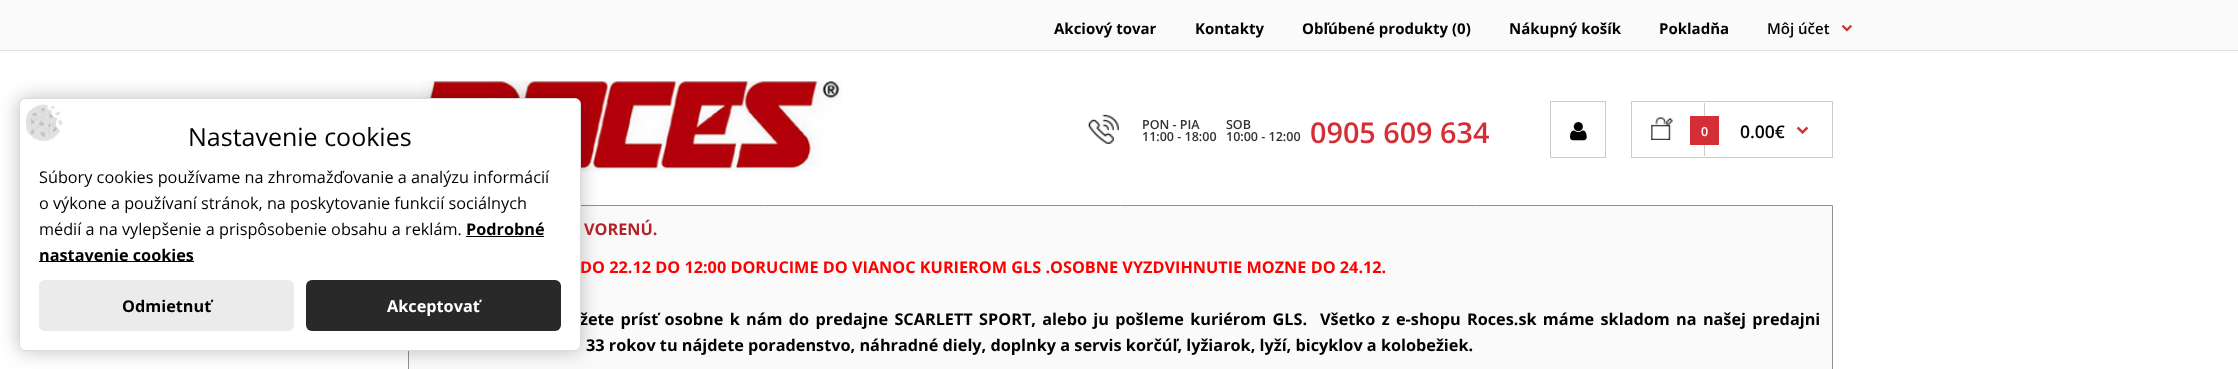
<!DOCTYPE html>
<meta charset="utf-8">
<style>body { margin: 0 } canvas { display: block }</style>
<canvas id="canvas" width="2238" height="369"></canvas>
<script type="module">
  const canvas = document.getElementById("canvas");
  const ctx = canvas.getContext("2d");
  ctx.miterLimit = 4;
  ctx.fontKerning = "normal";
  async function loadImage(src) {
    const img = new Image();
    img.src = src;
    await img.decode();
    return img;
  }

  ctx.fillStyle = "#ffffff";
  ctx.fillRect(0, 0, 2238, 369);
  ctx.drawImage(await loadImage("img3.png"), 417, 81, 425, 91);
  ctx.fillStyle = "#fafafa";
  ctx.beginPath();
  ctx.rect(408.5, 205.5, 1424, 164);
  ctx.fill();
  ctx.strokeStyle = "#909090";
  ctx.stroke();
  ctx.fillStyle = "rgba(0, 0, 0, 0.25)";
  ctx.filter = "blur(9.5px)";
  ctx.beginPath();
  ctx.roundRect(19, 98, 562, 253, 6);
  ctx.fill();
  ctx.filter = "none";
  ctx.wordSpacing = "2.1px";
  ctx.font = "bold 16.25px Open Sans";
  ctx.fillStyle = "#000000";
  ctx.fillText("žete prísť osobne k nám do predajne SCARLETT SPORT, alebo ju pošleme kuriérom GLS.", 580, 325);
  ctx.fillStyle = "#ffffff";
  ctx.beginPath();
  ctx.roundRect(19.5, 98.5, 561, 252, 5.5);
  ctx.fill();
  ctx.strokeStyle = "#dcdcdc";
  ctx.stroke();
  ctx.drawImage(await loadImage("img1.png"), 25, 104, 38, 37);
  ctx.wordSpacing = "0px";
  ctx.font = "25px Open Sans";
  ctx.fillStyle = "#000000";
  ctx.fillText("Nastavenie cookies", 188, 146);
  ctx.font = "16.25px Open Sans";
  ctx.fillText("Súbory cookies používame na zhromažďovanie a analýzu informácií", 39, 183);
  ctx.fillText("o výkone a používaní stránok, na poskytovanie funkcií sociálnych", 39, 209);
  ctx.fillText("médií a na vylepšenie a prispôsobenie obsahu a reklám.", 39, 235);
  ctx.font = "bold 16.25px Open Sans";
  ctx.fillText("Podrobné", 466, 235);
  ctx.fillStyle = "#020202";
  ctx.fillRect(466, 236, 78, 1);
  ctx.fillRect(39, 261, 155, 1);
  ctx.fillStyle = "#000000";
  ctx.fillText("nastavenie cookies", 39, 261);
  ctx.fillStyle = "#ebebeb";
  ctx.beginPath();
  ctx.roundRect(39, 280, 255, 51, 6);
  ctx.fill();
  ctx.fillStyle = "#000000";
  ctx.fillText("Odmietnuť", 122, 312);
  ctx.fillStyle = "#292929";
  ctx.beginPath();
  ctx.roundRect(306, 280, 255, 51, 6);
  ctx.fill();
  ctx.fillStyle = "#ffffff";
  ctx.fillText("Akceptovať", 387, 312);
  ctx.fillStyle = "#fafafa";
  ctx.fillRect(0, 0, 2238, 50);
  ctx.fillStyle = "#e1e1e1";
  ctx.fillRect(0, 50, 2238, 1);
  ctx.font = "bold 15px Open Sans";
  ctx.fillStyle = "#000000";
  ctx.fillText("Akciový tovar", 1054, 34);
  ctx.fillText("Kontakty", 1195, 34);
  ctx.fillText("Obľúbené produkty (0)", 1302, 34);
  ctx.fillText("Nákupný košík", 1509, 34);
  ctx.fillText("Pokladňa", 1659, 34);
  ctx.font = "600 15px Open Sans";
  ctx.fillText("Môj účet", 1767, 34);
  ctx.drawImage(await loadImage("img2.png"), 1841, 25, 11, 7);
  ctx.drawImage(await loadImage("img4.png"), 1088, 114, 31, 30);
  ctx.font = "600 12.5px Open Sans";
  ctx.fillStyle = "#333333";
  ctx.fillText("PON - PIA", 1142, 129);
  ctx.fillText("11:00 - 18:00", 1142, 141);
  ctx.fillText("SOB", 1226, 129);
  ctx.fillText("10:00 - 12:00", 1226, 141);
  ctx.font = "600 28.75px Open Sans";
  ctx.fillStyle = "#d42f37";
  ctx.fillText("0905 609 634", 1310, 143);
  ctx.strokeStyle = "#cccccc";
  ctx.strokeRect(1550.5, 101.5, 55, 56);
  ctx.drawImage(await loadImage("img5.png"), 1570, 122, 17, 19);
  ctx.strokeRect(1631.5, 101.5, 201, 56);
  ctx.drawImage(await loadImage("img6.png"), 1651, 117, 22, 23);
  ctx.fillStyle = "#cccccc";
  ctx.fillRect(1704, 103, 1, 53);
  ctx.fillStyle = "#d42f37";
  ctx.fillRect(1690, 116, 29, 29);
  ctx.font = "600 12.5px Open Sans";
  ctx.fillStyle = "#ffffff";
  ctx.fillText("0", 1701, 136);
  ctx.font = "600 17.5px Open Sans";
  ctx.fillStyle = "#000000";
  ctx.fillText("0.00€", 1740, 138);
  ctx.drawImage(await loadImage("img7.png"), 1796, 126, 13, 8);
  ctx.font = "bold 16.25px Open Sans";
  ctx.fillStyle = "#b4232a";
  ctx.fillText("VORENÚ.", 584, 235);
  ctx.fillStyle = "#ff0000";
  ctx.fillText("DO 22.12 DO 12:00 DORUCIME DO VIANOC KURIEROM GLS .OSOBNE VYZDVIHNUTIE MOZNE DO 24.12.", 580, 273);
  ctx.wordSpacing = "2.1px";
  ctx.fillStyle = "#000000";
  ctx.fillText("Všetko z e-shopu Roces.sk máme skladom na našej predajni", 1320, 325);
  ctx.wordSpacing = "0px";
  ctx.fillText("33 rokov tu nájdete poradenstvo, náhradné diely, doplnky a servis korčúľ, lyžiarok, lyží, bicyklov a kolobežiek.", 586, 351);
</script>
